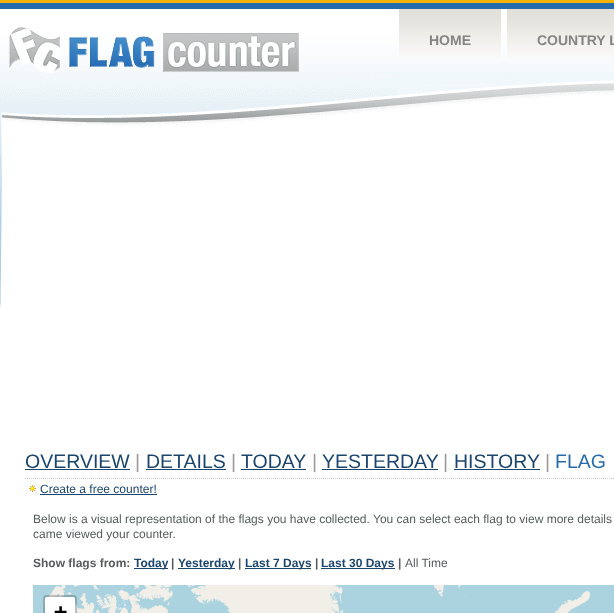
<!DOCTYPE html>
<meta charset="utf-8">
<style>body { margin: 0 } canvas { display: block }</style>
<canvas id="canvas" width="614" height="613"></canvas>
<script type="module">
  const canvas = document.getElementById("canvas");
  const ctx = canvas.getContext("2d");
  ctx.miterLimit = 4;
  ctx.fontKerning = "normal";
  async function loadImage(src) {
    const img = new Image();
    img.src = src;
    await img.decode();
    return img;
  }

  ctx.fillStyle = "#ffffff";
  ctx.fillRect(0, 0, 614, 613);
  ctx.drawImage(await loadImage("img1.png"), 0, 0, 614, 72);
  ctx.drawImage(await loadImage("img2.png"), 9, 27, 290, 45);
  ctx.drawImage(await loadImage("img3.png"), 399, 9, 102, 49);
  ctx.font = "bold 14px Liberation Sans";
  ctx.fillStyle = "#868382";
  ctx.fillText("HOME", 429, 45);
  ctx.drawImage(await loadImage("img4.png"), 507, 9, 107, 49);
  ctx.fillText("COUNTRY L", 537, 45);
  ctx.drawImage(await loadImage("img5.png"), 0, 72, 614, 237);
  ctx.beginPath();
  ctx.moveTo(25, 478.5);
  ctx.lineTo(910, 478.5);
  ctx.strokeStyle = "#cccccc";
  ctx.setLineDash([1, 1]);
  ctx.stroke();
  ctx.font = "19.5px Liberation Sans";
  ctx.fillStyle = "#1a456e";
  ctx.fillText("OVERVIEW", 25, 468);
  ctx.fillRect(25, 469, 105, 1);
  ctx.fillStyle = "#999999";
  ctx.fillText("|", 135, 468);
  ctx.fillStyle = "#1a456e";
  ctx.fillText("DETAILS", 146, 468);
  ctx.fillRect(146, 469, 80, 1);
  ctx.fillStyle = "#999999";
  ctx.fillText("|", 231, 468);
  ctx.fillStyle = "#1a456e";
  ctx.fillText("TODAY", 241, 468);
  ctx.fillRect(241, 469, 65, 1);
  ctx.fillStyle = "#999999";
  ctx.fillText("|", 312, 468);
  ctx.fillStyle = "#1a456e";
  ctx.fillText("YESTERDAY", 322, 468);
  ctx.fillRect(322, 469, 116, 1);
  ctx.fillStyle = "#999999";
  ctx.fillText("|", 443, 468);
  ctx.fillStyle = "#1a456e";
  ctx.fillText("HISTORY", 454, 468);
  ctx.fillRect(454, 469, 86, 1);
  ctx.fillStyle = "#999999";
  ctx.fillText("|", 545, 468);
  ctx.fillStyle = "#266baa";
  ctx.fillText("FLAG", 555, 468);
  ctx.drawImage(await loadImage("img6.png"), 29, 485, 7, 7);
  ctx.font = "12px Liberation Sans";
  ctx.fillStyle = "#1a456e";
  ctx.fillText("Create a free counter!", 40, 493);
  ctx.fillRect(40, 494, 117, 1);
  ctx.fillStyle = "#575b5c";
  ctx.fillText("Below is a visual representation of the flags you have collected. You can select each flag to view more details", 33, 523);
  ctx.fillText("came viewed your counter.", 33, 538);
  ctx.font = "bold 12px Liberation Sans";
  ctx.fillText("Show flags from:", 33, 567);
  ctx.fillStyle = "#1a456e";
  ctx.fillRect(134, 568, 34, 1);
  ctx.fillText("Today", 134, 567);
  ctx.fillStyle = "#575b5c";
  ctx.fillText("|", 171, 567);
  ctx.fillStyle = "#1a456e";
  ctx.fillRect(178, 568, 57, 1);
  ctx.fillText("Yesterday", 178, 567);
  ctx.fillStyle = "#575b5c";
  ctx.fillText("|", 238, 567);
  ctx.fillStyle = "#1a456e";
  ctx.fillRect(245, 568, 66, 1);
  ctx.fillText("Last 7 Days", 245, 567);
  ctx.fillStyle = "#575b5c";
  ctx.fillText("|", 315, 567);
  ctx.fillStyle = "#1a456e";
  ctx.fillRect(321, 568, 74, 1);
  ctx.fillText("Last 30 Days", 321, 567);
  ctx.fillStyle = "#575b5c";
  ctx.fillText("|", 398, 567);
  ctx.font = "12px Liberation Sans";
  ctx.fillText("All Time", 405, 567);
  ctx.drawImage(await loadImage("img7.png"), 33, 585, 105, 28);
  ctx.drawImage(await loadImage("img8.png"), 138, 585, 256, 28);
  ctx.drawImage(await loadImage("img9.png"), 394, 585, 220, 28);
  ctx.beginPath();
  ctx.roundRect(44, 596, 32, 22, 3);
  ctx.strokeStyle = "rgba(0, 0, 0, 0.2)";
  ctx.lineWidth = 2;
  ctx.setLineDash([]);
  ctx.stroke();
  ctx.fillStyle = "#ffffff";
  ctx.beginPath();
  ctx.moveTo(47, 597);
  ctx.lineTo(73, 597);
  ctx.bezierCurveTo(74, 597, 75, 598, 75, 599);
  ctx.lineTo(75, 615);
  ctx.lineTo(45, 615);
  ctx.lineTo(45, 599);
  ctx.bezierCurveTo(45, 598, 46, 597, 47, 597);
  ctx.closePath();
  ctx.fill();
  ctx.font = "bold 22px DejaVu Sans Mono";
  ctx.fillStyle = "#000000";
  ctx.fillText("+", 54, 619);
</script>
